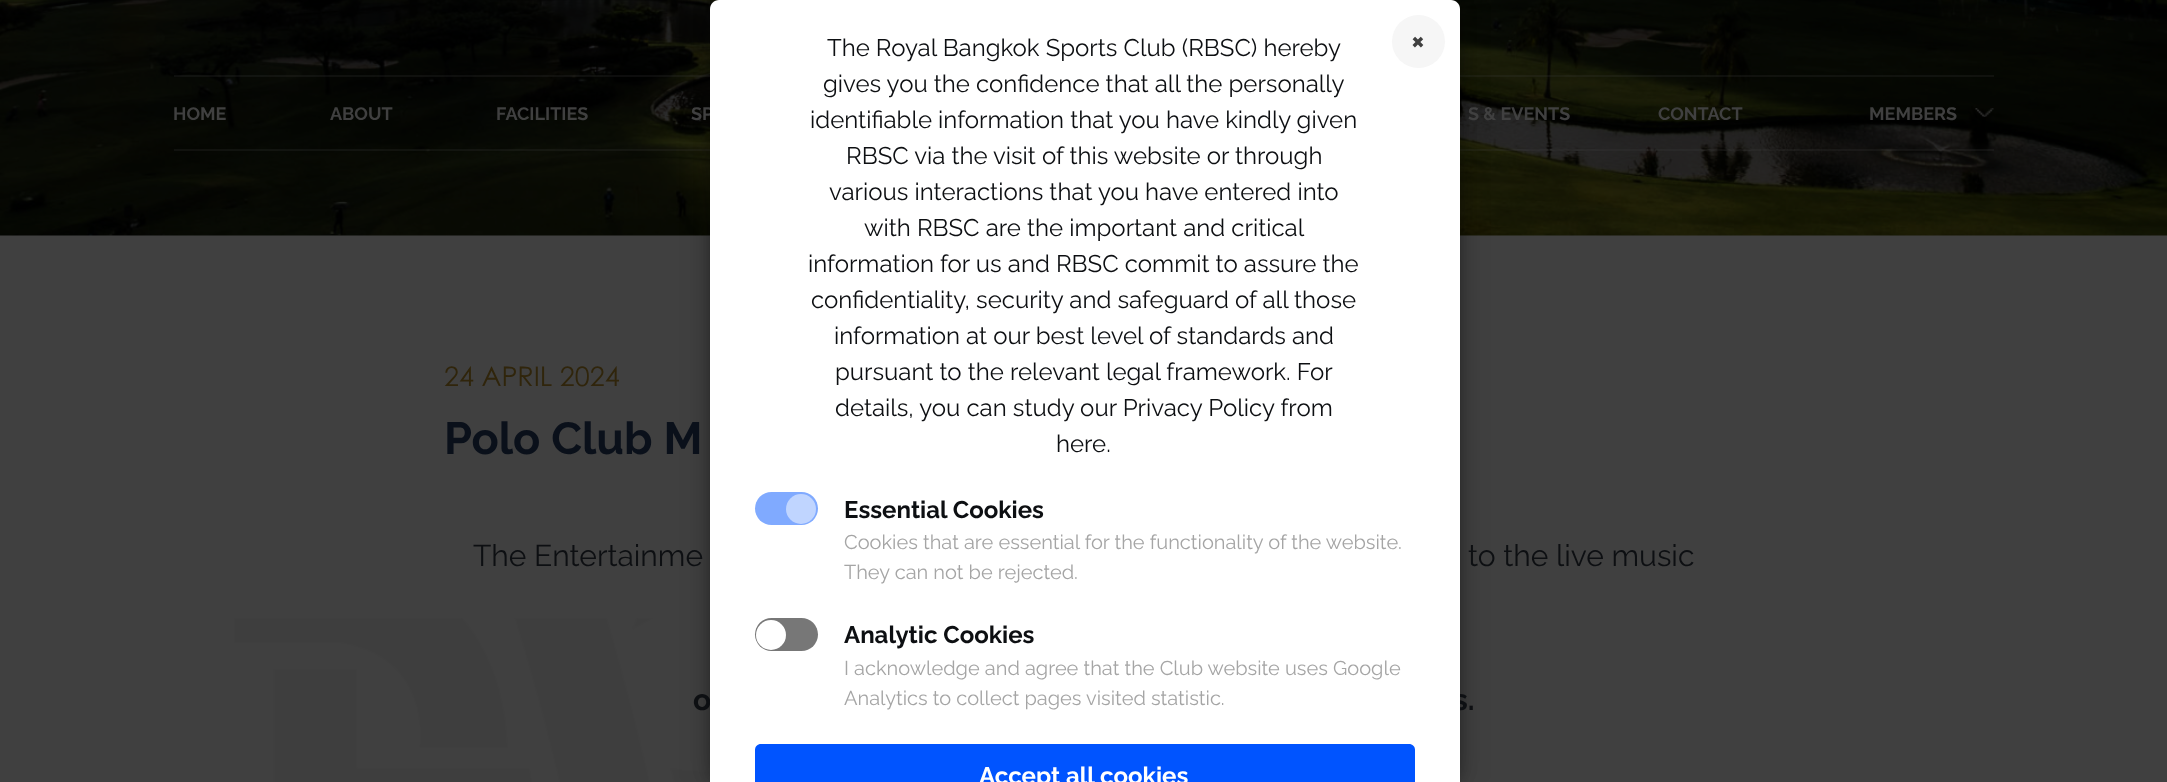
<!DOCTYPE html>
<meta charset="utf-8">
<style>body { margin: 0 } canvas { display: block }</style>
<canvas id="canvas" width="2167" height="782"></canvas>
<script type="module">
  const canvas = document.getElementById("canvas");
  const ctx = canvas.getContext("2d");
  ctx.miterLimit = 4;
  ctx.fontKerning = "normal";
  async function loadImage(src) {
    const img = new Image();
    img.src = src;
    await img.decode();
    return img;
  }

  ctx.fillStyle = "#404040";
  ctx.fillRect(0, 0, 2167, 782);
  ctx.drawImage(await loadImage("img1.png"), 0, 0, 2167, 236);
  ctx.fillStyle = "rgba(64, 64, 64, 0.2)";
  ctx.fillRect(174, 75, 536, 2);
  ctx.fillRect(174, 149, 536, 2);
  ctx.fillRect(1460, 75, 534, 2);
  ctx.fillRect(1460, 149, 534, 2);
  ctx.drawImage(await loadImage("img3.png"), 234, 618, 476, 164);
  ctx.fillStyle = "rgba(0, 0, 0, 0.2)";
  ctx.filter = "blur(15px)";
  ctx.beginPath();
  ctx.roundRect(710, 0, 750, 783, 9);
  ctx.fill();
  ctx.filter = "none";
  ctx.fillStyle = "rgba(0, 0, 0, 0.3)";
  ctx.filter = "blur(7.5px)";
  ctx.beginPath();
  ctx.roundRect(710, 0, 750, 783, 9);
  ctx.fill();
  ctx.filter = "none";
  ctx.font = "bold 18px Raleway";
  ctx.fillStyle = "#404040";
  ctx.fillText("SP", 691, 120);
  ctx.font = "bold 30px Raleway";
  ctx.fillStyle = "#0d0f12";
  ctx.fillText("o", 693, 710);
  ctx.fillText("s.", 1453, 710);
  ctx.fillStyle = "#ffffff";
  ctx.beginPath();
  ctx.moveTo(719, 0);
  ctx.lineTo(1451, 0);
  ctx.bezierCurveTo(1456, 0, 1460, 4, 1460, 9);
  ctx.lineTo(1460, 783);
  ctx.lineTo(710, 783);
  ctx.lineTo(710, 9);
  ctx.bezierCurveTo(710, 4, 714, 0, 719, 0);
  ctx.closePath();
  ctx.fill();
  ctx.fillStyle = "#f6f6f6";
  ctx.beginPath();
  ctx.arc(1418.5, 41.5, 26.5, 0, Math.PI * 2);
  ctx.fill();
  ctx.font = "bold 29px Raleway";
  ctx.fillStyle = "#404040";
  ctx.fillText("×", 1411, 50);
  ctx.fillStyle = "#0054ff";
  ctx.beginPath();
  ctx.moveTo(761, 744);
  ctx.lineTo(1409, 744);
  ctx.bezierCurveTo(1412.5, 744, 1415, 746.5, 1415, 750);
  ctx.lineTo(1415, 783);
  ctx.lineTo(755, 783);
  ctx.lineTo(755, 750);
  ctx.bezierCurveTo(755, 746.5, 757.5, 744, 761, 744);
  ctx.closePath();
  ctx.fill();
  ctx.font = "bold 24px Raleway";
  ctx.fillStyle = "#ffffff";
  ctx.fillText("Accept all cookies", 979, 784);
  ctx.font = "24px Raleway";
  ctx.fillStyle = "#0d0f12";
  ctx.fillText("The Royal Bangkok Sports Club (RBSC) hereby", 827, 56);
  ctx.fillText("gives you the confidence that all the personally", 823, 92);
  ctx.fillText("identifiable information that you have kindly given", 810, 128);
  ctx.fillText("RBSC via the visit of this website or through", 846, 164);
  ctx.fillText("various interactions that you have entered into", 829, 200);
  ctx.fillText("with RBSC are the important and critical", 864, 236);
  ctx.fillText("information for us and RBSC commit to assure the", 808, 272);
  ctx.fillText("confidentiality, security and safeguard of all those", 811, 308);
  ctx.fillText("information at our best level of standards and", 834, 344);
  ctx.fillText("pursuant to the relevant legal framework. For", 835, 380);
  ctx.fillText("details, you can study our Privacy Policy from", 835, 416);
  ctx.fillText("here.", 1056, 452);
  ctx.fillStyle = "#80aaff";
  ctx.beginPath();
  ctx.roundRect(755, 492, 63, 33, 16.5);
  ctx.fill();
  ctx.fillStyle = "#c0d5ff";
  ctx.beginPath();
  ctx.arc(801, 509, 15, 0, Math.PI * 2);
  ctx.fill();
  ctx.font = "bold 24px Raleway";
  ctx.fillStyle = "#0d0f12";
  ctx.fillText("Essential Cookies", 844, 518);
  ctx.font = "20px Raleway";
  ctx.fillStyle = "#a5a5a5";
  ctx.fillText("Cookies that are essential for the functionality of the website.", 844, 549);
  ctx.fillText("They can not be rejected.", 844, 579);
  ctx.fillStyle = "#777777";
  ctx.beginPath();
  ctx.roundRect(755, 618, 63, 33, 16.5);
  ctx.fill();
  ctx.fillStyle = "#ffffff";
  ctx.beginPath();
  ctx.arc(771, 635, 15, 0, Math.PI * 2);
  ctx.fill();
  ctx.font = "bold 24px Raleway";
  ctx.fillStyle = "#0d0f12";
  ctx.fillText("Analytic Cookies", 844, 643);
  ctx.font = "20px Raleway";
  ctx.fillStyle = "#a5a5a5";
  ctx.fillText("I acknowledge and agree that the Club website uses Google", 844, 675);
  ctx.fillText("Analytics to collect pages visited statistic.", 844, 705);
  ctx.font = "bold 18px Raleway";
  ctx.fillStyle = "#404040";
  ctx.fillText("HOME", 173, 120);
  ctx.fillText("ABOUT", 330, 120);
  ctx.fillText("FACILITIES", 496, 120);
  ctx.fillText("S & EVENTS", 1468, 120);
  ctx.fillText("CONTACT", 1658, 120);
  ctx.fillText("MEMBERS", 1869, 120);
  ctx.drawImage(await loadImage("img2.png"), 1975, 108, 19, 9);
  ctx.font = "27px Century Gothic";
  ctx.fillStyle = "#30250b";
  ctx.fillText("24 APRIL 2024", 444, 386);
  ctx.font = "bold 45px Raleway";
  ctx.fillStyle = "#0a101a";
  ctx.fillText("Polo Club M", 444, 454);
  ctx.font = "30px Raleway";
  ctx.fillStyle = "#0d0f12";
  ctx.fillText("The Entertainme", 473, 566);
  ctx.fillText("to the live music", 1468, 566);
</script>
